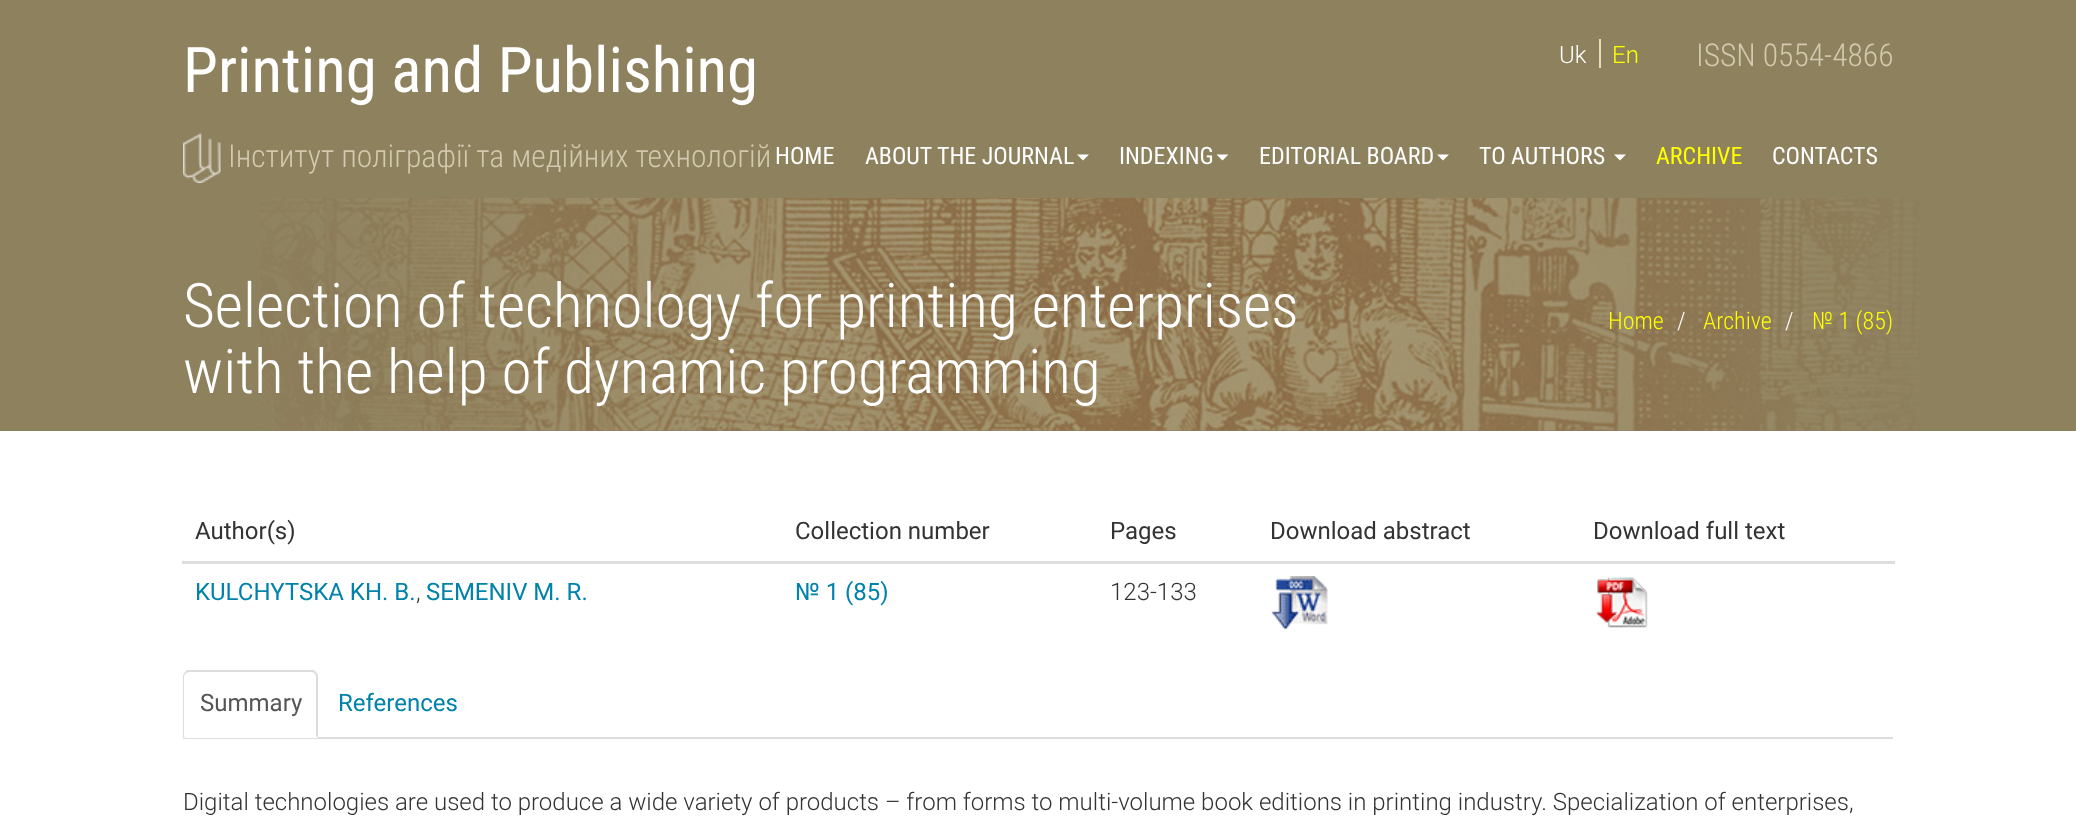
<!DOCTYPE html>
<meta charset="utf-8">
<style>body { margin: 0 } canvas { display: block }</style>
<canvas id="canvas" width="2076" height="820"></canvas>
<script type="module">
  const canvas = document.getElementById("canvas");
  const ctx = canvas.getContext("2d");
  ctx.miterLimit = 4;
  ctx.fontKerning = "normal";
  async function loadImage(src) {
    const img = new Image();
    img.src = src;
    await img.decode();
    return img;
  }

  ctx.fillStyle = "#ffffff";
  ctx.fillRect(0, 0, 2076, 820);
  ctx.fillStyle = "#8d815e";
  ctx.fillRect(0, 0, 2076, 431);
  ctx.font = "63px Roboto Condensed";
  ctx.fillStyle = "#ffffff";
  ctx.fillText("Printing and Publishing", 183, 92);
  ctx.drawImage(await loadImage("img1.png"), 183, 133, 38, 50);
  ctx.font = "300 31.5px Roboto Condensed";
  ctx.fillStyle = "#d2c9ae";
  ctx.fillText("Інститут поліграфії та медійних технологій", 228, 167);
  ctx.fillStyle = "#e8dcba";
  ctx.fillRect(1599, 39, 2, 29);
  ctx.font = "300 24px Roboto";
  ctx.fillStyle = "#ffffff";
  ctx.fillText("Uk", 1559, 63);
  ctx.fillStyle = "#ffff00";
  ctx.fillText("En", 1612, 63);
  ctx.font = "300 31.5px Roboto Condensed";
  ctx.fillStyle = "#d2c9ae";
  ctx.fillText("ISSN 0554-4866", 1696, 66);
  ctx.font = "24px Roboto Condensed";
  ctx.fillStyle = "#ffffff";
  ctx.fillText("HOME", 775, 164);
  ctx.fillText("ABOUT THE JOURNAL", 865, 164);
  ctx.beginPath();
  ctx.moveTo(1077, 154.5);
  ctx.lineTo(1089, 154.5);
  ctx.lineTo(1083, 160.5);
  ctx.closePath();
  ctx.fill();
  ctx.fillText("INDEXING", 1119, 164);
  ctx.beginPath();
  ctx.moveTo(1216.5, 154.5);
  ctx.lineTo(1228.5, 154.5);
  ctx.lineTo(1222.5, 160.5);
  ctx.closePath();
  ctx.fill();
  ctx.fillText("EDITORIAL BOARD", 1259, 164);
  ctx.beginPath();
  ctx.moveTo(1437, 154.5);
  ctx.lineTo(1449, 154.5);
  ctx.lineTo(1443, 160.5);
  ctx.closePath();
  ctx.fill();
  ctx.fillText("TO AUTHORS", 1479, 164);
  ctx.beginPath();
  ctx.moveTo(1614, 154.5);
  ctx.lineTo(1626, 154.5);
  ctx.lineTo(1620, 160.5);
  ctx.closePath();
  ctx.fill();
  ctx.fillStyle = "#ffff00";
  ctx.fillText("ARCHIVE", 1656, 164);
  ctx.fillStyle = "#ffffff";
  ctx.fillText("CONTACTS", 1772, 164);
  ctx.drawImage(await loadImage("img2.png"), 260, 198, 1660, 233);
  ctx.font = "300 61.5px Roboto Condensed";
  ctx.fillText("Selection of technology for printing enterprises", 183, 327);
  ctx.fillText("with the help of dynamic programming", 183, 393);
  ctx.font = "300 24px Roboto Condensed";
  ctx.fillStyle = "#ffff00";
  ctx.fillText("Home", 1608, 329);
  ctx.fillStyle = "#ffffff";
  ctx.fillText("/", 1677, 329);
  ctx.fillStyle = "#ffff00";
  ctx.fillText("Archive", 1703, 329);
  ctx.fillStyle = "#ffffff";
  ctx.fillText("/", 1785, 329);
  ctx.fillStyle = "#ffff00";
  ctx.fillText("№ 1 (85)", 1812, 329);
  ctx.font = "24px Roboto";
  ctx.fillStyle = "#333333";
  ctx.fillText("Author(s)", 195, 539);
  ctx.fillText("Collection number", 795, 539);
  ctx.fillText("Pages", 1110, 539);
  ctx.fillText("Download abstract", 1270, 539);
  ctx.fillStyle = "#dddddd";
  ctx.fillRect(182, 561, 1713, 3);
  ctx.fillStyle = "#333333";
  ctx.fillText("Download full text", 1593, 539);
  ctx.fillStyle = "#0082ab";
  ctx.fillText("KULCHYTSKA KH. B.", 195, 600);
  ctx.font = "300 24px Roboto";
  ctx.fillStyle = "#333333";
  ctx.fillText(",", 416, 600);
  ctx.font = "24px Roboto";
  ctx.fillStyle = "#0082ab";
  ctx.fillText("SEMENIV M. R.", 426, 600);
  ctx.fillText("№ 1 (85)", 795, 600);
  ctx.font = "300 24px Roboto";
  ctx.fillStyle = "#333333";
  ctx.fillText("123-133", 1110, 600);
  ctx.drawImage(await loadImage("img3.png"), 1271, 576, 57, 53);
  ctx.drawImage(await loadImage("img4.png"), 1596, 577, 52, 51);
  ctx.fillStyle = "#dddddd";
  ctx.fillRect(183, 737, 1710, 2);
  ctx.fillStyle = "#ffffff";
  ctx.beginPath();
  ctx.roundRect(183, 671, 135, 67, [6, 6, 0, 0]);
  ctx.fill();
  ctx.fillStyle = "#dddddd";
  ctx.beginPath();
  ctx.moveTo(189, 672);
  ctx.lineTo(186, 673);
  ctx.lineTo(185, 672);
  ctx.lineTo(187, 670);
  ctx.lineTo(314, 670);
  ctx.lineTo(316, 672);
  ctx.lineTo(315, 674);
  ctx.bezierCurveTo(314, 673, 313, 672, 312, 672);
  ctx.closePath();
  ctx.fill();
  ctx.beginPath();
  ctx.moveTo(318, 738);
  ctx.lineTo(318, 676);
  ctx.bezierCurveTo(318, 675, 317, 673, 316, 672);
  ctx.lineTo(315, 674);
  ctx.lineTo(316, 676);
  ctx.lineTo(316, 736);
  ctx.closePath();
  ctx.fill();
  ctx.beginPath();
  ctx.moveTo(183, 738);
  ctx.lineTo(185, 736);
  ctx.lineTo(184, 736);
  ctx.lineTo(184, 676);
  ctx.lineTo(186, 673);
  ctx.lineTo(185, 672);
  ctx.bezierCurveTo(184, 673, 183, 675, 183, 676);
  ctx.closePath();
  ctx.fill();
  ctx.font = "24px Roboto";
  ctx.fillStyle = "#555555";
  ctx.fillText("Summary", 200, 711);
  ctx.fillStyle = "#0082ab";
  ctx.fillText("References", 338, 711);
  ctx.font = "300 24px Roboto";
  ctx.fillStyle = "#333333";
  ctx.fillText("Digital technologies are used to produce a wide variety of products – from forms to multi-volume book editions in printing industry. Specialization of enterprises,", 183, 810);
</script>
